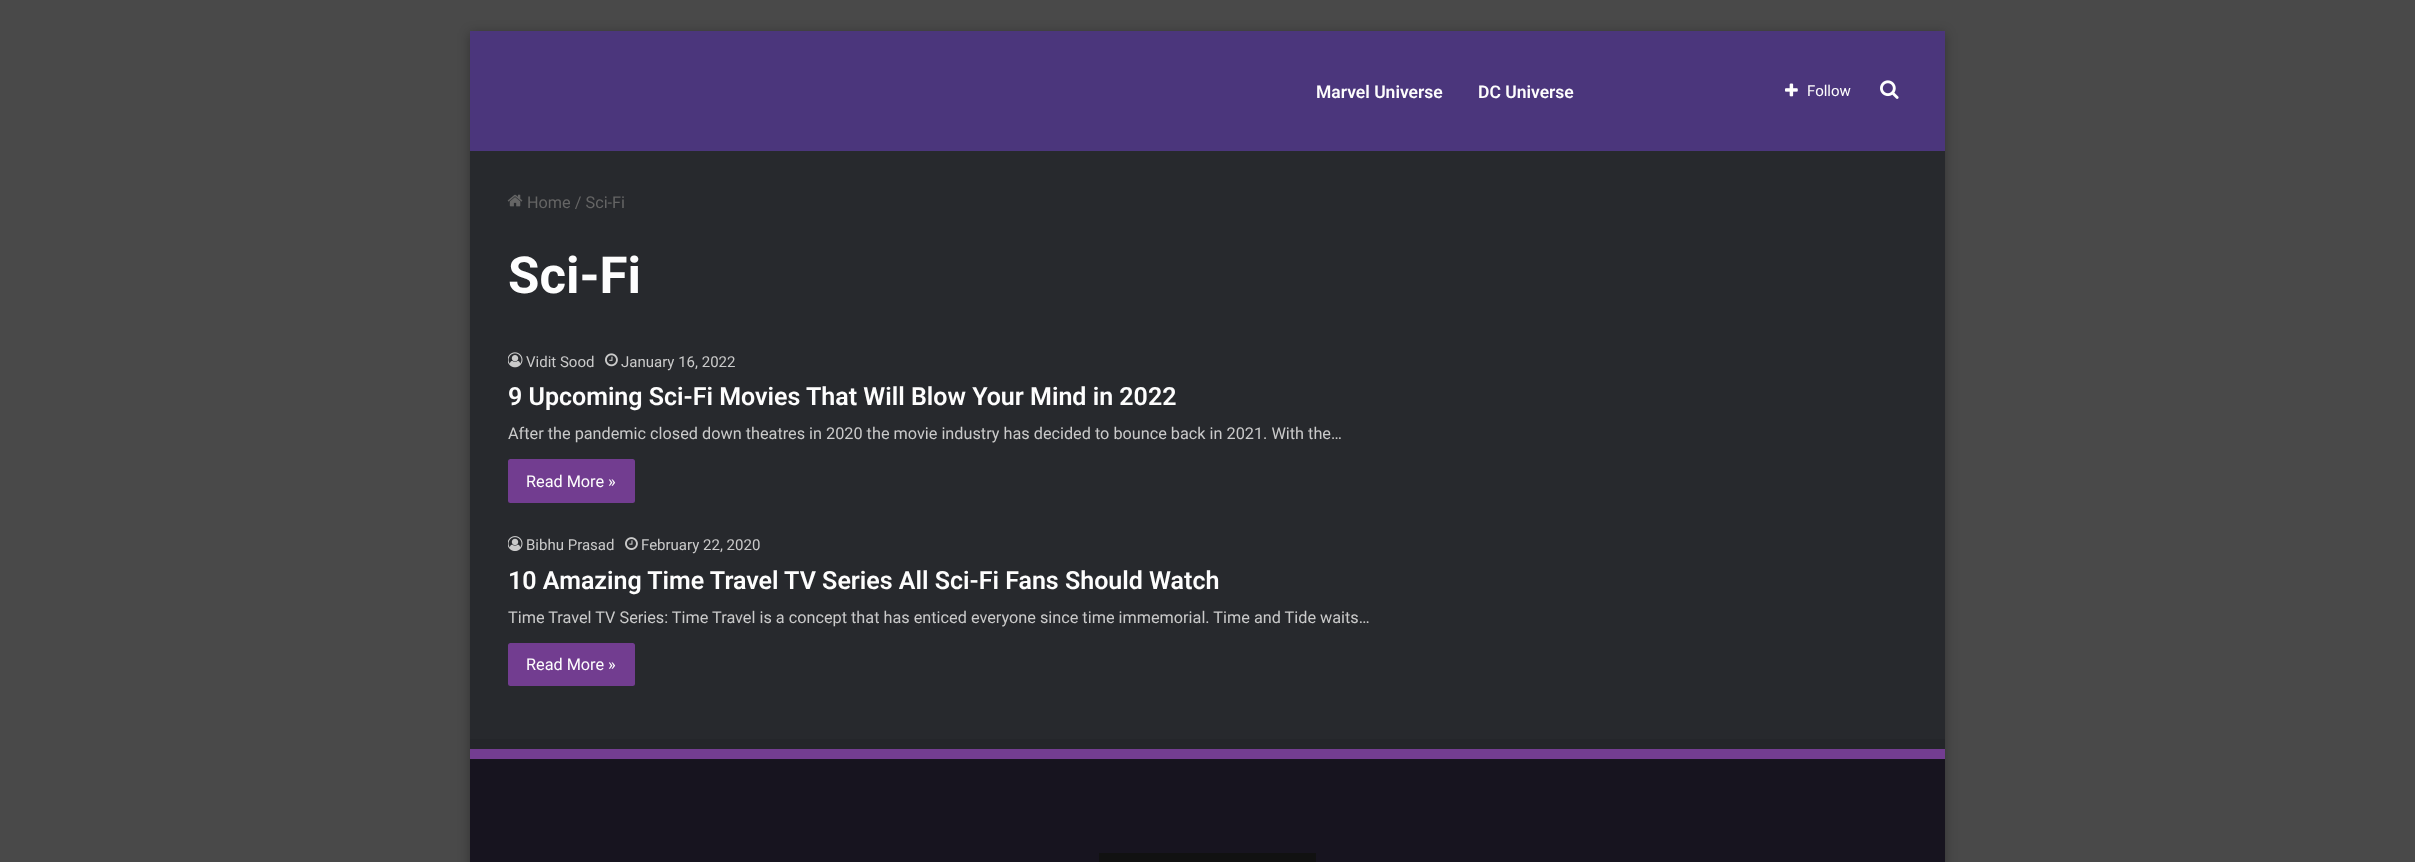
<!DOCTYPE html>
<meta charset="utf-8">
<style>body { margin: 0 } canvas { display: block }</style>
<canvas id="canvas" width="2415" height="862"></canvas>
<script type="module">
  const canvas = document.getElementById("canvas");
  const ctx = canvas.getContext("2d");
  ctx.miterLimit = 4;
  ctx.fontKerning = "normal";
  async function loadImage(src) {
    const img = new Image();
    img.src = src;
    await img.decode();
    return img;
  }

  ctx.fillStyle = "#494949";
  ctx.fillRect(0, 0, 2415, 862);
  ctx.fillStyle = "rgba(0, 0, 0, 0.3)";
  ctx.filter = "blur(6px)";
  ctx.beginPath();
  ctx.rect(470, 33, 1475, 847);
  ctx.fill();
  ctx.filter = "none";
  ctx.fillStyle = "#27292d";
  ctx.fillRect(470, 151, 1475, 588);
  ctx.fillStyle = "#4b367c";
  ctx.fillRect(470, 31, 1475, 120);
  ctx.font = "600 17.5px Roboto";
  ctx.fillStyle = "#fdfdfd";
  ctx.fillText("Marvel Universe", 1316, 98);
  ctx.fillText("DC Universe", 1478, 98);
  ctx.drawImage(await loadImage("img1.png"), 1785, 83, 13, 14);
  ctx.font = "15px Roboto";
  ctx.fillText("Follow", 1807, 96);
  ctx.drawImage(await loadImage("img2.png"), 1880, 80, 19, 19);
  ctx.drawImage(await loadImage("img3.png"), 507, 194, 16, 13);
  ctx.font = "16.25px Roboto";
  ctx.fillStyle = "#656565";
  ctx.fillText("Home / Sci-Fi", 527, 208);
  ctx.font = "bold 51px Roboto";
  ctx.fillStyle = "#fdfdfd";
  ctx.fillText("Sci-Fi", 508, 293);
  ctx.drawImage(await loadImage("img4.png"), 508, 352, 15, 16);
  ctx.font = "15px Roboto";
  ctx.fillStyle = "#cacaca";
  ctx.fillText("Vidit Sood", 526, 367);
  ctx.drawImage(await loadImage("img5.png"), 605, 353, 13, 14);
  ctx.fillText("January 16, 2022", 621, 367);
  ctx.font = "600 25px Roboto";
  ctx.fillStyle = "#fdfdfd";
  ctx.fillText("9 Upcoming Sci-Fi Movies That Will Blow Your Mind in 2022", 508, 405);
  ctx.font = "16.25px Roboto";
  ctx.fillStyle = "#cacaca";
  ctx.fillText("After the pandemic closed down theatres in 2020 the movie industry has decided to bounce back in 2021. With the…", 508, 439);
  ctx.fillStyle = "#723d90";
  ctx.beginPath();
  ctx.roundRect(508, 459, 127, 44, 2.5);
  ctx.fill();
  ctx.fillStyle = "#fdfdfd";
  ctx.fillText("Read More »", 526, 487);
  ctx.drawImage(await loadImage("img6.png"), 508, 536, 15, 15);
  ctx.font = "15px Roboto";
  ctx.fillStyle = "#cacaca";
  ctx.fillText("Bibhu Prasad", 526, 550);
  ctx.drawImage(await loadImage("img7.png"), 625, 537, 13, 13);
  ctx.fillText("February 22, 2020", 641, 550);
  ctx.font = "600 25px Roboto";
  ctx.fillStyle = "#fdfdfd";
  ctx.fillText("10 Amazing Time Travel TV Series All Sci-Fi Fans Should Watch", 508, 589);
  ctx.font = "16.25px Roboto";
  ctx.fillStyle = "#cacaca";
  ctx.fillText("Time Travel TV Series: Time Travel is a concept that has enticed everyone since time immemorial. Time and Tide waits…", 508, 623);
  ctx.fillStyle = "#723d90";
  ctx.beginPath();
  ctx.roundRect(508, 643, 127, 43, 2.5);
  ctx.fill();
  ctx.fillStyle = "#fdfdfd";
  ctx.fillText("Read More »", 526, 670);
  ctx.fillStyle = "#17141f";
  ctx.fillRect(470, 759, 1475, 103);
  ctx.fillStyle = "#24262a";
  ctx.fillRect(470, 739, 1475, 10);
  ctx.fillStyle = "#733d91";
  ctx.fillRect(470, 749, 1475, 10);
  ctx.fillStyle = "#111111";
  ctx.fillRect(1099, 853, 217, 9);
</script>
